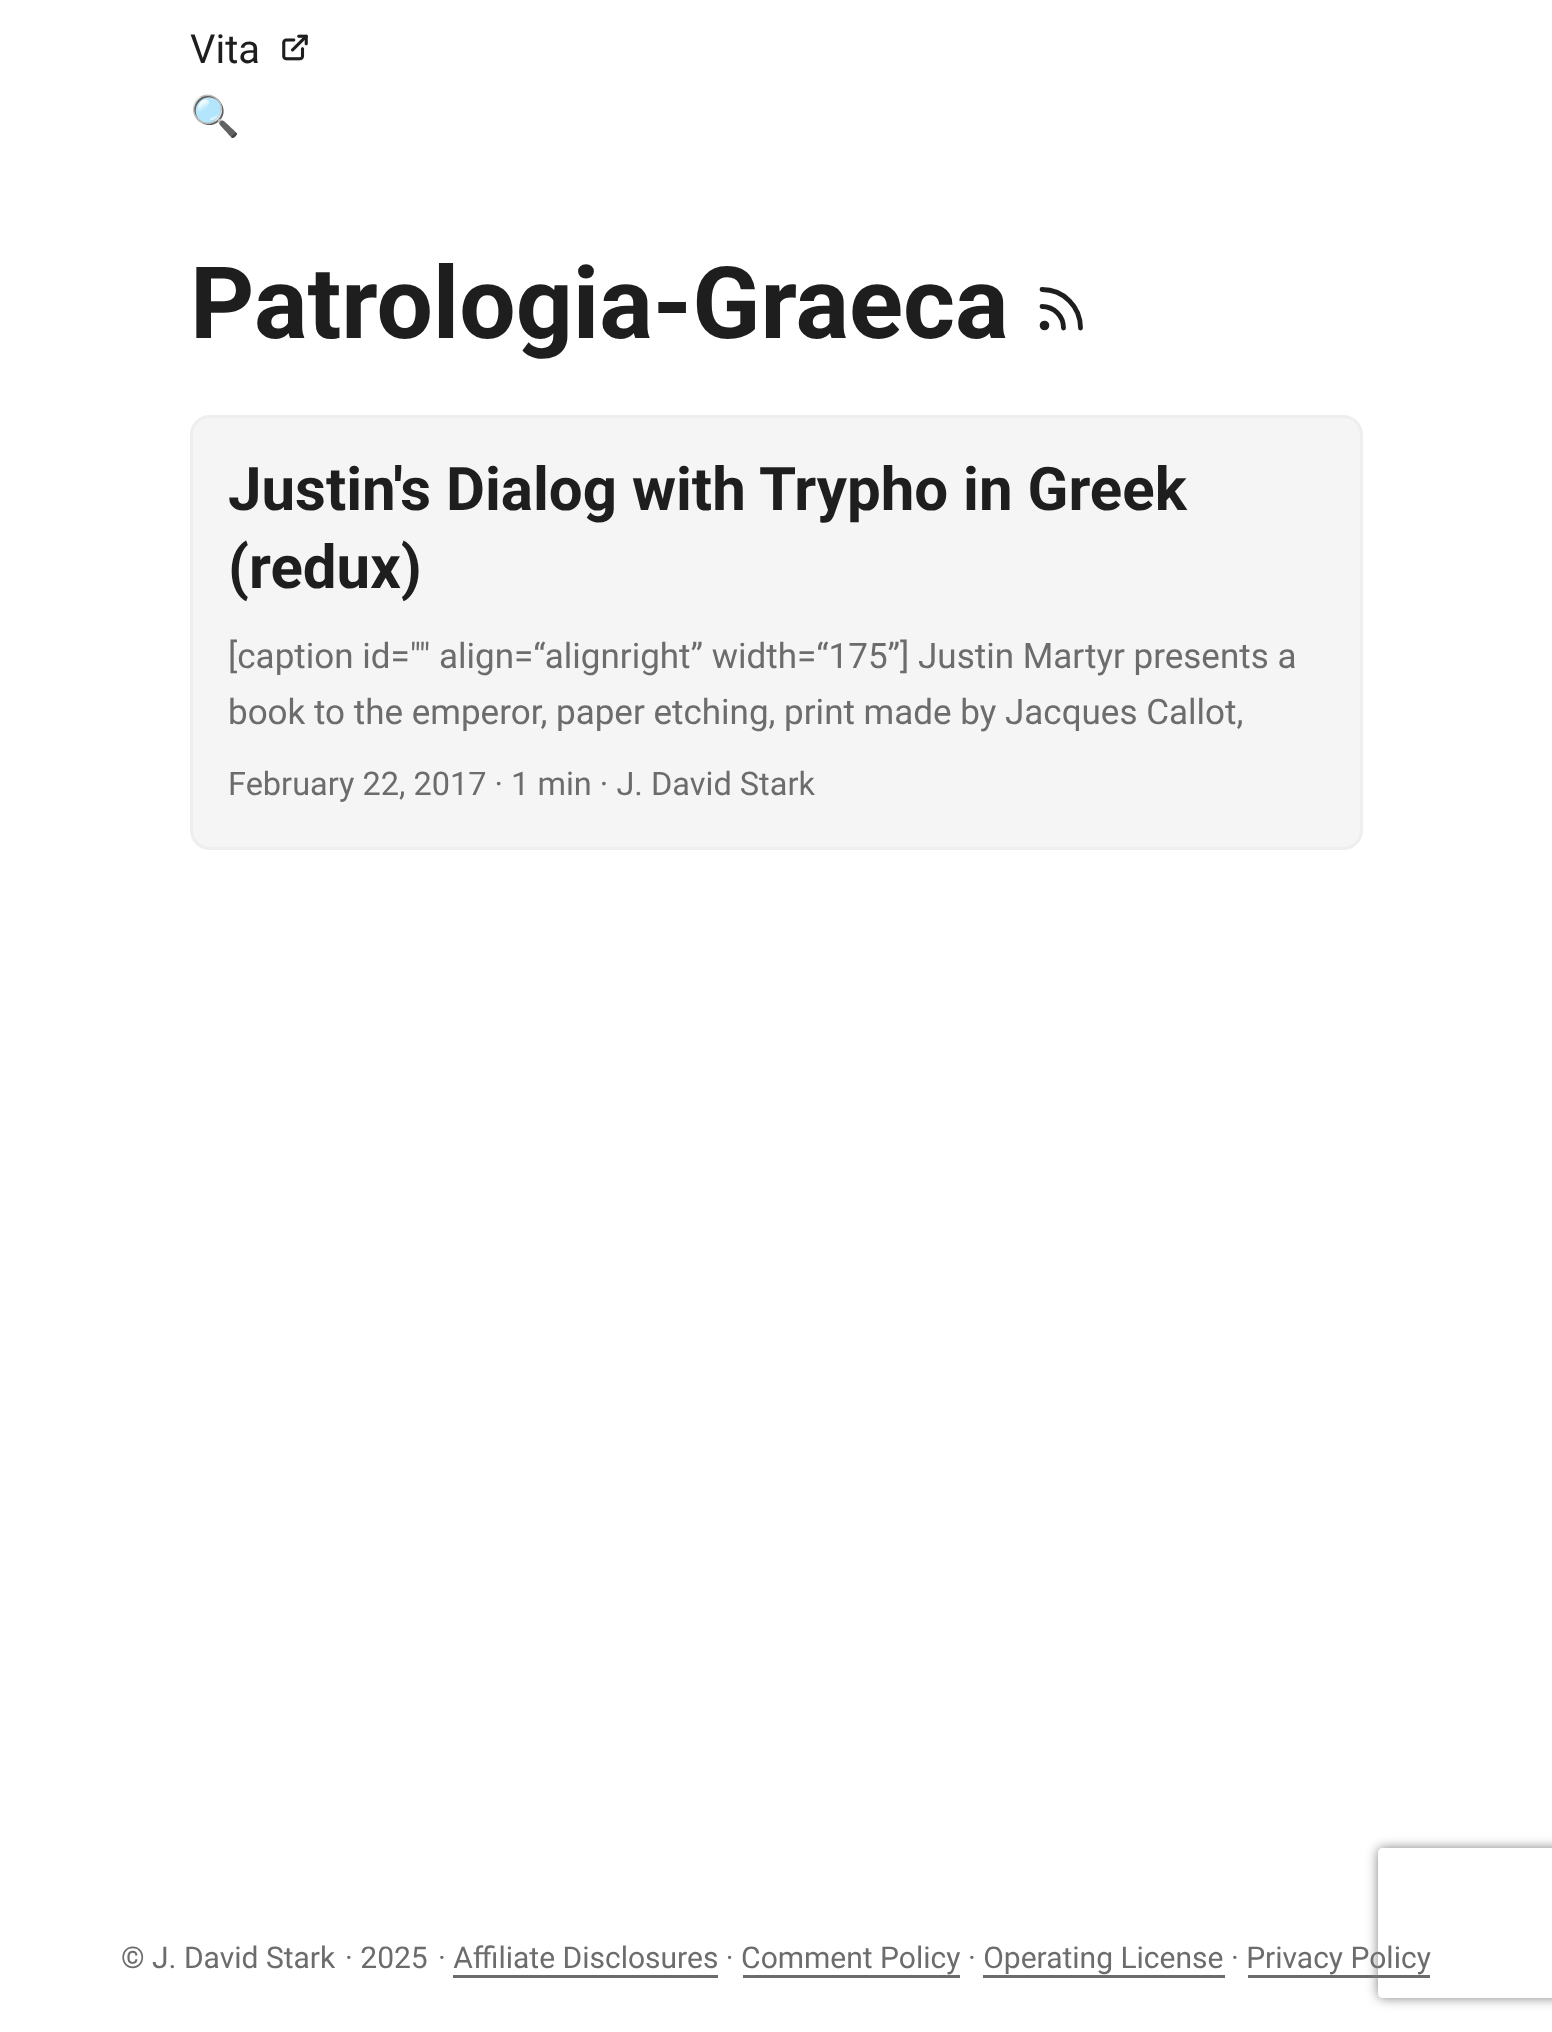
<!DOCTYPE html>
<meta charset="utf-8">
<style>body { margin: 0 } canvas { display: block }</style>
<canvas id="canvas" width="1552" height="2032"></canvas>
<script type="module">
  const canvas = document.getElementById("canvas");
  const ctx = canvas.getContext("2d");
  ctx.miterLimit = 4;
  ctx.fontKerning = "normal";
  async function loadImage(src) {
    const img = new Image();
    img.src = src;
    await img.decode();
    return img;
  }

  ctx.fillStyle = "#ffffff";
  ctx.fillRect(0, 0, 1552, 2032);
  ctx.font = "40px Roboto";
  ctx.fillStyle = "#1e1e1e";
  ctx.fillText("Vita", 190, 63);
  ctx.drawImage(await loadImage("img1.png"), 282, 34, 26, 27);
  ctx.font = "40px Noto Color Emoji";
  ctx.fillText("🔍", 190, 130);
  ctx.font = "bold 100px Roboto";
  ctx.fillText("Patrologia-Graeca", 190, 338);
  ctx.beginPath();
  ctx.moveTo(1042, 306.5);
  ctx.bezierCurveTo(1054, 306.5, 1063.5, 316, 1063.5, 328);
  ctx.moveTo(1042, 289.5);
  ctx.bezierCurveTo(1063.5, 289.5, 1080.5, 306.5, 1080.5, 328);
  ctx.strokeStyle = "#1e1e1e";
  ctx.lineWidth = 4.8;
  ctx.lineCap = "round";
  ctx.lineJoin = "round";
  ctx.stroke();
  ctx.beginPath();
  ctx.arc(1044.5, 325.5, 2.4, 0, Math.PI * 2);
  ctx.stroke();
  ctx.fillStyle = "#f5f5f5";
  ctx.beginPath();
  ctx.roundRect(191.5, 416.5, 1170, 432, 18.5);
  ctx.fill();
  ctx.strokeStyle = "#eeeeee";
  ctx.lineWidth = 3;
  ctx.lineJoin = "miter";
  ctx.stroke();
  ctx.font = "bold 60px Roboto";
  ctx.fillStyle = "#1e1e1e";
  ctx.fillText("Justin's Dialog with Trypho in Greek", 228, 510);
  ctx.fillText("(redux)", 228, 588);
  ctx.font = "35px Roboto";
  ctx.fillStyle = "#6c6c6c";
  ctx.fillText("[caption id=\"\" align=“alignright” width=“175”] Justin Martyr presents a", 228, 668);
  ctx.fillText("book to the emperor, paper etching, print made by Jacques Callot,", 228, 724);
  ctx.font = "32.5px Roboto";
  ctx.fillText("February 22, 2017 · 1 min · J. David Stark", 228, 795);
  ctx.font = "30px Roboto";
  ctx.fillText("© J. David Stark", 121, 1968);
  ctx.fillText("· 2025", 345, 1968);
  ctx.fillText("· Affiliate Disclosures · Comment Policy · Operating License · Privacy Policy", 438, 1968);
  ctx.fillRect(453, 1975, 265, 3);
  ctx.fillRect(743, 1975, 217, 3);
  ctx.fillRect(983, 1975, 242, 3);
  ctx.fillRect(1248, 1975, 182, 3);
  ctx.save();
  ctx.beginPath();
  ctx.moveTo(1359, 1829);
  ctx.lineTo(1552, 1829);
  ctx.lineTo(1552, 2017);
  ctx.lineTo(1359, 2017);
  ctx.closePath();
  ctx.moveTo(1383, 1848);
  ctx.lineTo(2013, 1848);
  ctx.bezierCurveTo(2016, 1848, 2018, 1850, 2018, 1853);
  ctx.lineTo(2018, 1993);
  ctx.bezierCurveTo(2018, 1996, 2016, 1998, 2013, 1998);
  ctx.lineTo(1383, 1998);
  ctx.bezierCurveTo(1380, 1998, 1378, 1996, 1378, 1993);
  ctx.lineTo(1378, 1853);
  ctx.bezierCurveTo(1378, 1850, 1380, 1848, 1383, 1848);
  ctx.closePath();
  ctx.clip("evenodd");
  ctx.fillStyle = "#808080";
  ctx.filter = "blur(6px)";
  ctx.beginPath();
  ctx.roundRect(1378, 1848, 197, 150, 5);
  ctx.fill();
  ctx.filter = "none";
  ctx.restore();
</script>
